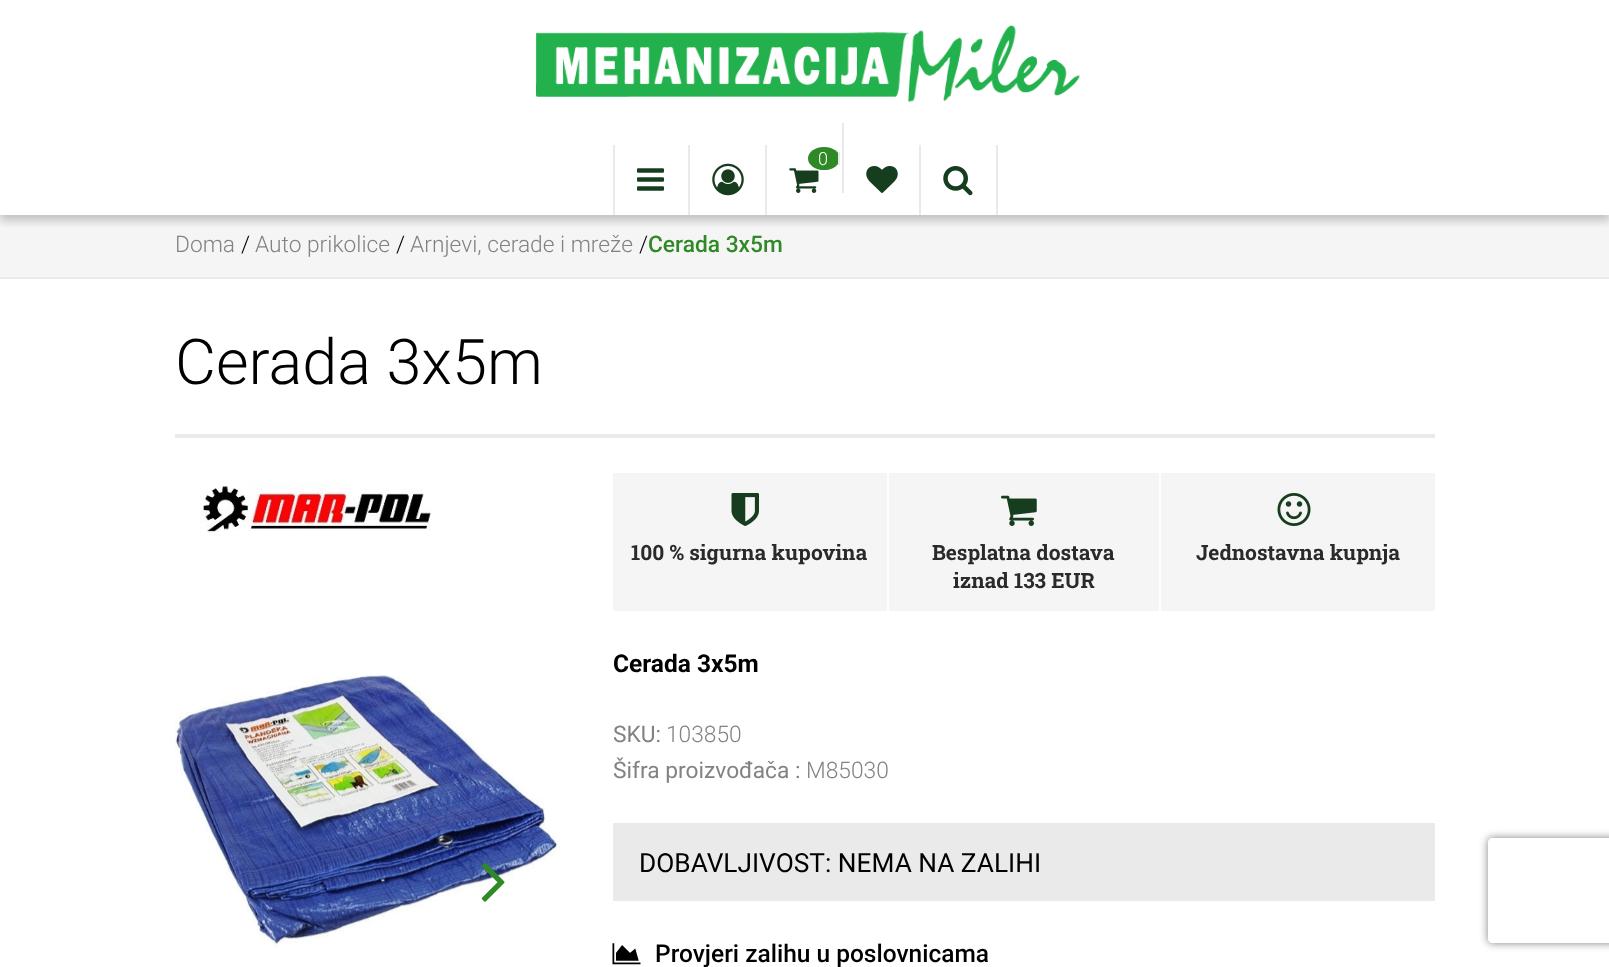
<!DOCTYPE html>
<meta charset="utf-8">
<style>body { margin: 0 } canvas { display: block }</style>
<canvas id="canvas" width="1609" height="967"></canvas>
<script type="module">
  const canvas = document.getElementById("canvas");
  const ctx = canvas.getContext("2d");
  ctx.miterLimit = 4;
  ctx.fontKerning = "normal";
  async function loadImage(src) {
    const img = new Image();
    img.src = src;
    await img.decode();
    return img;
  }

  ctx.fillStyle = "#ffffff";
  ctx.fillRect(0, 0, 1609, 967);
  ctx.drawImage(await loadImage("img1.png"), 536, 25, 544, 78);
  ctx.fillStyle = "#f5f5f5";
  ctx.fillRect(0, 215, 1609, 62);
  ctx.save();
  ctx.beginPath();
  ctx.rect(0, 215, 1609, 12);
  ctx.clip();
  ctx.fillStyle = "rgba(0, 0, 0, 0.2)";
  ctx.filter = "blur(4.5px)";
  ctx.beginPath();
  ctx.rect(0, 128, 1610, 93);
  ctx.fill();
  ctx.filter = "none";
  ctx.restore();
  ctx.fillStyle = "#eaeaea";
  ctx.fillRect(688, 145, 2, 70);
  ctx.fillRect(613, 145, 2, 70);
  ctx.drawImage(await loadImage("img2.png"), 637, 168, 27, 23);
  ctx.fillRect(765, 145, 2, 70);
  ctx.drawImage(await loadImage("img3.png"), 712, 163, 32, 33);
  ctx.fillRect(842, 123, 2, 70);
  ctx.drawImage(await loadImage("img4.png"), 789, 168, 30, 25);
  ctx.fillStyle = "#2f8927";
  ctx.beginPath();
  ctx.ellipse(824, 158.5, 16, 11.5, 0, 0, Math.PI * 2);
  ctx.fill();
  ctx.fillStyle = "#eaeaea";
  ctx.fillRect(838, 152, 2, 13);
  ctx.font = "300 18px Roboto";
  ctx.fillStyle = "#ffffff";
  ctx.fillText("0", 818, 165);
  ctx.fillStyle = "#eaeaea";
  ctx.fillRect(919, 145, 2, 70);
  ctx.drawImage(await loadImage("img5.png"), 866, 166, 32, 27);
  ctx.fillRect(996, 145, 2, 70);
  ctx.drawImage(await loadImage("img6.png"), 943, 166, 30, 30);
  ctx.font = "300 22.75px Roboto";
  ctx.fillStyle = "#808285";
  ctx.fillText("Doma", 175, 252);
  ctx.fillStyle = "#000000";
  ctx.fillText("/", 241, 252);
  ctx.fillStyle = "#808285";
  ctx.fillText("Auto prikolice", 255, 252);
  ctx.fillStyle = "#000000";
  ctx.fillText("/", 396, 252);
  ctx.fillStyle = "#808285";
  ctx.fillText("Arnjevi, cerade i mreže", 410, 252);
  ctx.fillStyle = "#000000";
  ctx.fillText("/", 639, 252);
  ctx.font = "500 22.75px Roboto";
  ctx.fillStyle = "#2f8927";
  ctx.fillText("Cerada 3x5m", 648, 252);
  ctx.fillStyle = "#eaeaea";
  ctx.fillRect(0, 277, 1609, 2);
  ctx.fillRect(175, 434, 1260, 4);
  ctx.font = "300 63px Roboto";
  ctx.fillStyle = "#000000";
  ctx.fillText("Cerada 3x5m", 175, 384);
  ctx.drawImage(await loadImage("img7.png"), 200, 481, 231, 55);
  ctx.drawImage(await loadImage("img8.png"), 175, 675, 385, 273);
  ctx.drawImage(await loadImage("img9.png"), 481, 862, 24, 40);
  ctx.fillStyle = "#f5f5f5";
  ctx.fillRect(613, 473, 822, 138);
  ctx.drawImage(await loadImage("img10.png"), 731, 493, 28, 33);
  ctx.font = "bold 21px Roboto Slab";
  ctx.fillStyle = "#2a2a2a";
  ctx.fillText("100 % sigurna kupovina", 631, 560);
  ctx.fillStyle = "#ffffff";
  ctx.fillRect(1159, 473, 2, 138);
  ctx.fillRect(887, 473, 2, 138);
  ctx.drawImage(await loadImage("img11.png"), 1001, 495, 36, 31);
  ctx.fillStyle = "#2a2a2a";
  ctx.fillText("Besplatna dostava", 932, 560);
  ctx.fillText("iznad 133 EUR", 953, 588);
  ctx.drawImage(await loadImage("img12.png"), 1277, 493, 34, 33);
  ctx.fillText("Jednostavna kupnja", 1196, 560);
  ctx.font = "bold 24.5px Roboto";
  ctx.fillStyle = "#000000";
  ctx.fillText("Cerada 3x5m", 613, 672);
  ctx.font = "22.75px Roboto";
  ctx.fillStyle = "#808285";
  ctx.fillText("SKU:", 613, 742);
  ctx.font = "300 22.75px Roboto";
  ctx.fillText("103850", 666, 742);
  ctx.font = "22.75px Roboto";
  ctx.fillText("Šifra proizvođača :", 613, 778);
  ctx.font = "300 22.75px Roboto";
  ctx.fillText("M85030", 806, 778);
  ctx.fillStyle = "#eaeaea";
  ctx.fillRect(613, 823, 822, 78);
  ctx.font = "26.25px Roboto";
  ctx.fillStyle = "#000000";
  ctx.fillText("DOBAVLJIVOST: NEMA NA ZALIHI", 639, 872);
  ctx.drawImage(await loadImage("img13.png"), 612, 943, 29, 22);
  ctx.font = "500 24.5px Roboto";
  ctx.fillText("Provjeri zalihu u poslovnicama", 655, 962);
  ctx.save();
  ctx.beginPath();
  ctx.moveTo(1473, 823);
  ctx.lineTo(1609, 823);
  ctx.lineTo(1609, 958);
  ctx.lineTo(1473, 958);
  ctx.closePath();
  ctx.moveTo(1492, 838);
  ctx.lineTo(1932, 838);
  ctx.bezierCurveTo(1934, 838, 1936, 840, 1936, 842);
  ctx.lineTo(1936, 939);
  ctx.bezierCurveTo(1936, 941, 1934, 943, 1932, 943);
  ctx.lineTo(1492, 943);
  ctx.bezierCurveTo(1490, 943, 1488, 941, 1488, 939);
  ctx.lineTo(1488, 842);
  ctx.bezierCurveTo(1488, 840, 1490, 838, 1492, 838);
  ctx.closePath();
  ctx.clip("evenodd");
  ctx.fillStyle = "#808080";
  ctx.filter = "blur(4.5px)";
  ctx.beginPath();
  ctx.roundRect(1488, 838, 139, 105, 4);
  ctx.fill();
  ctx.filter = "none";
  ctx.restore();
</script>
